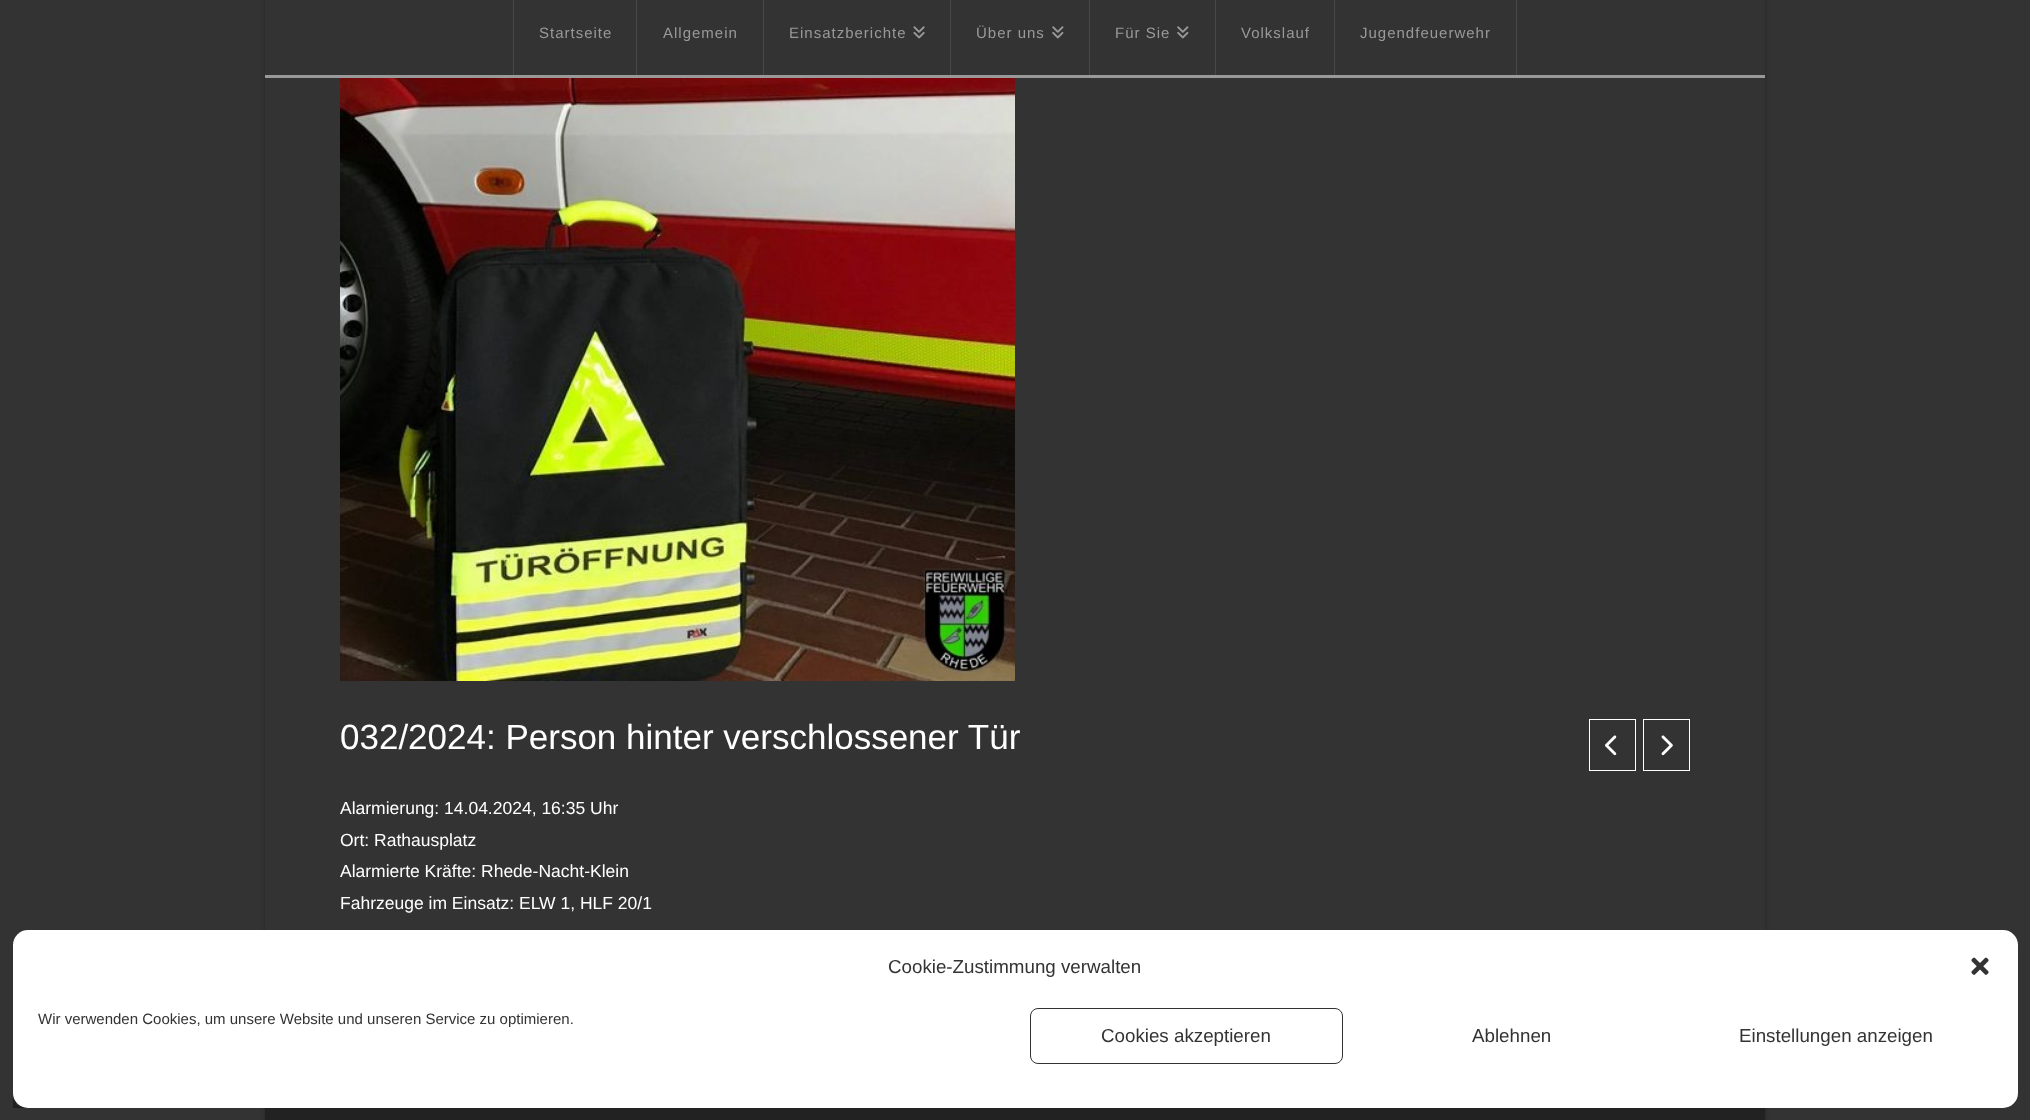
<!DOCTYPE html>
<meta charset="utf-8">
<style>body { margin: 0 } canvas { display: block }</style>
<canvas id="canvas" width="2030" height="1120"></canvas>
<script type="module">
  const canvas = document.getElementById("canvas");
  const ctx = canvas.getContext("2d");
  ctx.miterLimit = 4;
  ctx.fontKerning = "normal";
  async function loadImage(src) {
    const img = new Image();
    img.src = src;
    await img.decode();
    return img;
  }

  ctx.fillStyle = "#333333";
  ctx.fillRect(0, 0, 2030, 1120);
  ctx.fillStyle = "rgba(0, 0, 0, 0.25)";
  ctx.filter = "blur(2.5px)";
  ctx.beginPath();
  ctx.rect(265, -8, 1500, 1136);
  ctx.fill();
  ctx.filter = "none";
  ctx.fillStyle = "#333333";
  ctx.fillRect(265, 78, 1500, 852);
  ctx.fillRect(265, 0, 1500, 75);
  ctx.fillStyle = "#999999";
  ctx.fillRect(265, 75, 1500, 3);
  ctx.fillStyle = "#474747";
  ctx.fillRect(636, 0, 1, 75);
  ctx.fillRect(513, 0, 1, 75);
  ctx.letterSpacing = "1px";
  ctx.font = "15px Liberation Sans";
  ctx.fillStyle = "#999999";
  ctx.fillText("Startseite", 539, 38);
  ctx.fillStyle = "#474747";
  ctx.fillRect(763, 0, 1, 75);
  ctx.fillStyle = "#999999";
  ctx.fillText("Allgemein", 663, 38);
  ctx.fillStyle = "#474747";
  ctx.fillRect(950, 0, 1, 75);
  ctx.fillStyle = "#999999";
  ctx.fillText("Einsatzberichte", 789, 38);
  ctx.drawImage(await loadImage("img1.png"), 913, 26, 12, 13);
  ctx.fillStyle = "#474747";
  ctx.fillRect(1089, 0, 1, 75);
  ctx.fillStyle = "#999999";
  ctx.fillText("Über uns", 976, 38);
  ctx.drawImage(await loadImage("img2.png"), 1052, 26, 12, 13);
  ctx.fillStyle = "#474747";
  ctx.fillRect(1215, 0, 1, 75);
  ctx.fillStyle = "#999999";
  ctx.fillText("Für Sie", 1115, 38);
  ctx.drawImage(await loadImage("img2.png"), 1177, 26, 12, 13);
  ctx.fillStyle = "#474747";
  ctx.fillRect(1334, 0, 1, 75);
  ctx.fillStyle = "#999999";
  ctx.fillText("Volkslauf", 1241, 38);
  ctx.fillStyle = "#474747";
  ctx.fillRect(1516, 0, 1, 75);
  ctx.fillStyle = "#999999";
  ctx.fillText("Jugendfeuerwehr", 1360, 38);
  ctx.drawImage(await loadImage("img3.png"), 340, 78, 675, 603);
  ctx.letterSpacing = "0px";
  ctx.font = "35px Liberation Sans";
  ctx.fillStyle = "#ffffff";
  ctx.fillText("032/2024: Person hinter verschlossener Tür", 340, 749);
  ctx.strokeStyle = "#ffffff";
  ctx.strokeRect(1589.5, 719.5, 46, 51);
  ctx.drawImage(await loadImage("img4.png"), 1605, 735, 12, 21);
  ctx.strokeRect(1643.5, 719.5, 46, 51);
  ctx.drawImage(await loadImage("img5.png"), 1661, 735, 12, 21);
  ctx.font = "17.5px Liberation Sans";
  ctx.fillText("Alarmierung: 14.04.2024, 16:35 Uhr", 340, 814);
  ctx.fillText("Ort: Rathausplatz", 340, 846);
  ctx.fillText("Alarmierte Kräfte: Rhede-Nacht-Klein", 340, 877);
  ctx.fillText("Fahrzeuge im Einsatz: ELW 1, HLF 20/1", 340, 909);
  ctx.fillStyle = "#222222";
  ctx.fillRect(265, 1108, 1500, 12);
  ctx.strokeStyle = "#202020";
  ctx.lineWidth = 3;
  ctx.strokeRect(14.5, 1065.5, 40, 41);
  ctx.fillStyle = "#ffffff";
  ctx.beginPath();
  ctx.roundRect(13, 930, 2005, 178, 15);
  ctx.fill();
  ctx.font = "18.75px Liberation Sans";
  ctx.fillStyle = "#333333";
  ctx.fillText("Cookie-Zustimmung verwalten", 888, 973);
  ctx.drawImage(await loadImage("img6.png"), 1971, 957, 18, 18);
  ctx.font = "15px Liberation Sans";
  ctx.fillText("Wir verwenden Cookies, um unsere Website und unseren Service zu optimieren.", 38, 1024);
  ctx.beginPath();
  ctx.roundRect(1030.5, 1008.5, 312, 55, 7.5);
  ctx.strokeStyle = "#333333";
  ctx.lineWidth = 1;
  ctx.stroke();
  ctx.font = "18.75px Liberation Sans";
  ctx.fillText("Cookies akzeptieren", 1101, 1042);
  ctx.fillText("Ablehnen", 1472, 1042);
  ctx.fillText("Einstellungen anzeigen", 1739, 1042);
</script>
